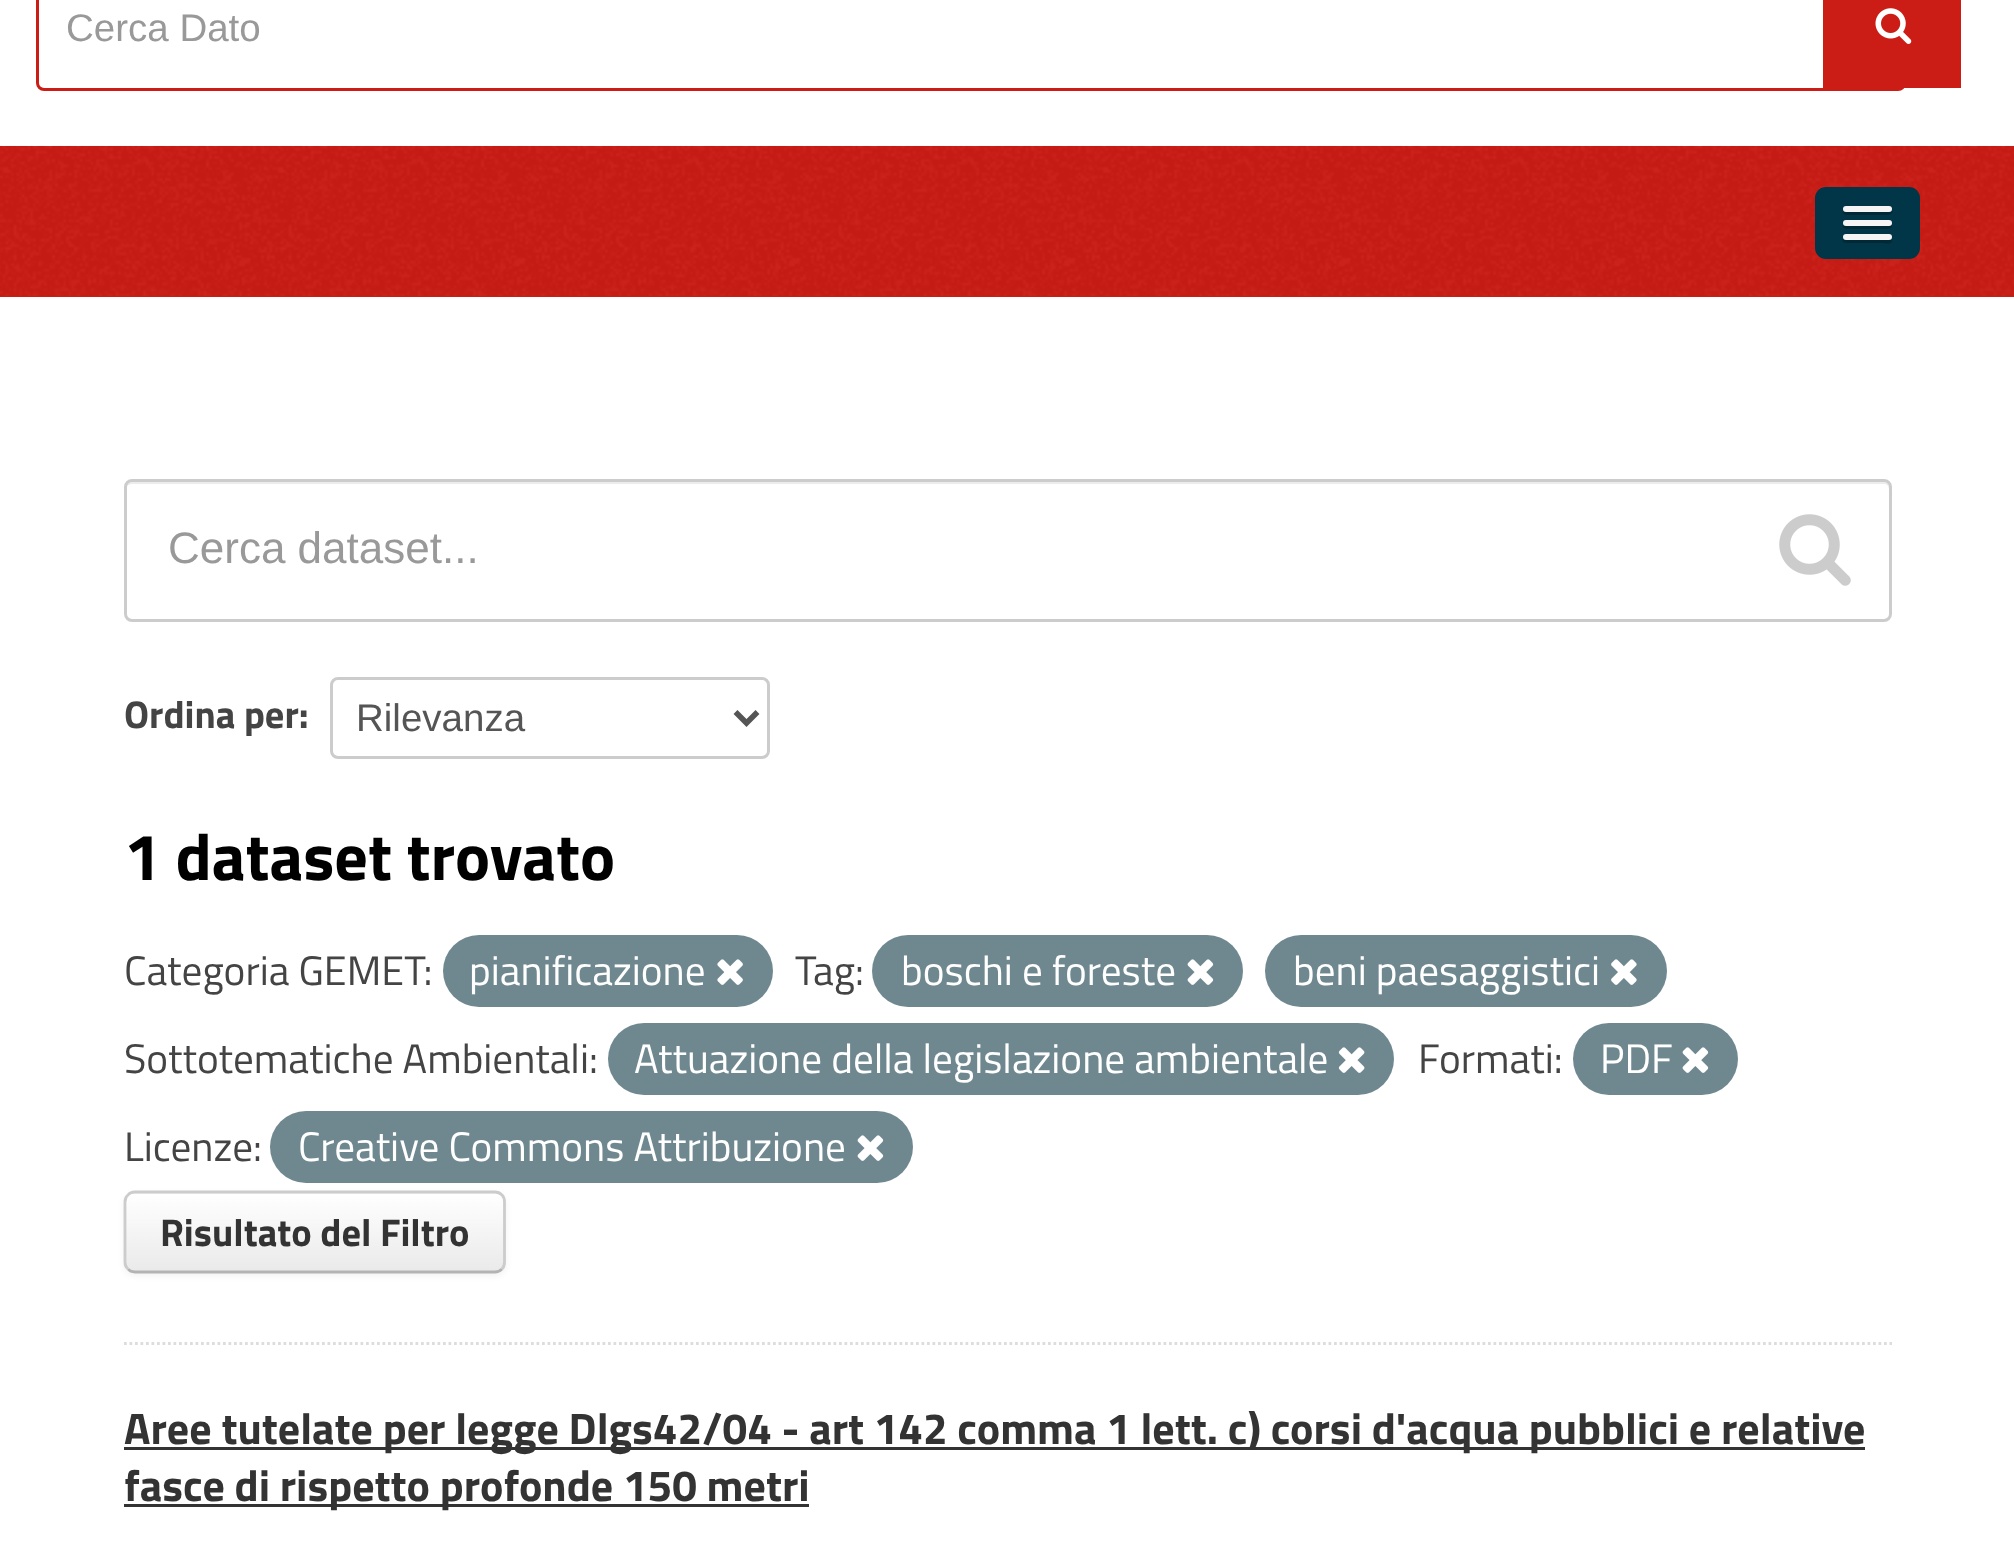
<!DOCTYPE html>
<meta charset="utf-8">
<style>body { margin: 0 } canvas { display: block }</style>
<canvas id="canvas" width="2014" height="1568"></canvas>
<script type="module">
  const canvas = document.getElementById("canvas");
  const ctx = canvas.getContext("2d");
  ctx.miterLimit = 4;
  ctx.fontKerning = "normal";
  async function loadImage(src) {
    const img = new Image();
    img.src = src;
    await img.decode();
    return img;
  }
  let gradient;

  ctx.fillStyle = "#ffffff";
  ctx.fillRect(0, 0, 2014, 1568);
  ctx.beginPath();
  ctx.roundRect(37.5, -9.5, 1867, 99, 6.5);
  ctx.strokeStyle = "#cb1d15";
  ctx.lineWidth = 3;
  ctx.stroke();
  ctx.font = "38.5px Liberation Sans";
  ctx.fillStyle = "#999999";
  ctx.fillText("Cerca Dato", 66, 41);
  ctx.fillStyle = "#cb1d15";
  ctx.fillRect(1823, 0, 138, 88);
  ctx.drawImage(await loadImage("img1.png"), 1875, 8, 37, 36);
  ctx.fillRect(0, 146, 2014, 151);
  ctx.drawImage(await loadImage("img2.png"), 0, 145, 2014, 151);
  ctx.fillStyle = "#003647";
  ctx.beginPath();
  ctx.roundRect(1815, 187, 105, 72, 11);
  ctx.fill();
  ctx.fillStyle = "#002935";
  ctx.beginPath();
  ctx.moveTo(1843, 211);
  ctx.bezierCurveTo(1841, 216, 1852, 215, 1853, 215);
  ctx.lineTo(1882, 215);
  ctx.bezierCurveTo(1883, 215, 1895, 216, 1892, 210);
  ctx.lineTo(1890, 212);
  ctx.lineTo(1845, 212);
  ctx.closePath();
  ctx.fill();
  ctx.fillStyle = "#f5f5f5";
  ctx.beginPath();
  ctx.roundRect(1843, 206, 49, 6, 3);
  ctx.fill();
  ctx.fillStyle = "#002935";
  ctx.beginPath();
  ctx.moveTo(1843, 225);
  ctx.bezierCurveTo(1841, 230, 1852, 229, 1853, 229);
  ctx.lineTo(1882, 229);
  ctx.bezierCurveTo(1882, 229, 1896, 230, 1891, 224);
  ctx.lineTo(1890, 225);
  ctx.lineTo(1845, 225);
  ctx.closePath();
  ctx.fill();
  ctx.fillStyle = "#f5f5f5";
  ctx.beginPath();
  ctx.roundRect(1843, 220, 49, 6, 3);
  ctx.fill();
  ctx.fillStyle = "#002935";
  ctx.beginPath();
  ctx.moveTo(1843, 239);
  ctx.bezierCurveTo(1840, 244, 1852, 243, 1853, 243);
  ctx.lineTo(1882, 243);
  ctx.bezierCurveTo(1884, 243, 1891, 245, 1892, 241);
  ctx.lineTo(1891, 238);
  ctx.lineTo(1890, 239);
  ctx.bezierCurveTo(1885, 240, 1845, 240, 1843, 239);
  ctx.closePath();
  ctx.fill();
  ctx.fillStyle = "#f5f5f5";
  ctx.beginPath();
  ctx.roundRect(1843, 234, 49, 6, 3);
  ctx.fill();
  ctx.beginPath();
  ctx.moveTo(124, 1343.5);
  ctx.lineTo(1892, 1343.5);
  ctx.strokeStyle = "#dddddd";
  ctx.lineWidth = 2.8;
  ctx.setLineDash([2.75, 2.75]);
  ctx.stroke();
  ctx.fillStyle = "#ececec";
  ctx.beginPath();
  ctx.moveTo(132, 484);
  ctx.lineTo(1884, 484);
  ctx.bezierCurveTo(1887, 484, 1889, 486, 1889, 490);
  ctx.lineTo(1889, 487);
  ctx.bezierCurveTo(1889, 484, 1886, 481, 1883, 481);
  ctx.lineTo(133, 481);
  ctx.bezierCurveTo(130, 481, 127, 483, 127, 486);
  ctx.bezierCurveTo(128, 485, 130, 484, 132, 484);
  ctx.closePath();
  ctx.fill();
  ctx.beginPath();
  ctx.roundRect(125.5, 480.5, 1765, 140, 6.5);
  ctx.strokeStyle = "#cccccc";
  ctx.lineWidth = 3;
  ctx.setLineDash([]);
  ctx.stroke();
  ctx.font = "44px Liberation Sans";
  ctx.fillStyle = "#999999";
  ctx.fillText("Cerca dataset...", 168, 563);
  ctx.drawImage(await loadImage("img3.png"), 1779, 514, 72, 72);
  ctx.font = "bold 38.5px Titillium Web";
  ctx.fillStyle = "#444444";
  ctx.fillText("Ordina per:", 124, 728);
  ctx.beginPath();
  ctx.roundRect(331.5, 678.5, 437, 79, 6.5);
  ctx.stroke();
  ctx.beginPath();
  ctx.moveTo(735.5, 712);
  ctx.lineTo(746.5, 723);
  ctx.lineTo(757.5, 712);
  ctx.strokeStyle = "#555555";
  ctx.lineWidth = 5.5;
  ctx.stroke();
  ctx.font = "38.5px Liberation Sans";
  ctx.fillStyle = "#555555";
  ctx.fillText("Rilevanza", 356, 731);
  ctx.font = "bold 66px Titillium Web";
  ctx.fillStyle = "#000000";
  ctx.fillText("1 dataset trovato", 124, 880);
  ctx.font = "41.25px Titillium Web";
  ctx.fillStyle = "#444444";
  ctx.fillText("Categoria GEMET:", 124, 985);
  ctx.fillStyle = "#6f8890";
  ctx.beginPath();
  ctx.roundRect(443, 935, 330, 72, 36);
  ctx.fill();
  ctx.fillStyle = "#ffffff";
  ctx.fillText("pianificazione", 469, 985);
  ctx.drawImage(await loadImage("img4.png"), 717, 959, 26, 26);
  ctx.fillStyle = "#444444";
  ctx.fillText("Tag:", 795, 985);
  ctx.fillStyle = "#6f8890";
  ctx.beginPath();
  ctx.roundRect(872, 935, 371, 72, 36);
  ctx.fill();
  ctx.fillStyle = "#ffffff";
  ctx.fillText("boschi e foreste", 901, 985);
  ctx.drawImage(await loadImage("img5.png"), 1187, 959, 27, 26);
  ctx.fillStyle = "#6f8890";
  ctx.beginPath();
  ctx.roundRect(1265, 935, 402, 72, 36);
  ctx.fill();
  ctx.fillStyle = "#ffffff";
  ctx.fillText("beni paesaggistici", 1293, 985);
  ctx.drawImage(await loadImage("img6.png"), 1611, 959, 26, 26);
  ctx.fillStyle = "#444444";
  ctx.fillText("Sottotematiche Ambientali:", 124, 1073);
  ctx.fillStyle = "#6f8890";
  ctx.beginPath();
  ctx.roundRect(608, 1023, 786, 72, 36);
  ctx.fill();
  ctx.fillStyle = "#ffffff";
  ctx.fillText("Attuazione della legislazione ambientale", 634, 1073);
  ctx.drawImage(await loadImage("img7.png"), 1338, 1047, 27, 26);
  ctx.fillStyle = "#444444";
  ctx.fillText("Formati:", 1418, 1073);
  ctx.fillStyle = "#6f8890";
  ctx.beginPath();
  ctx.roundRect(1573, 1023, 165, 72, 36);
  ctx.fill();
  ctx.fillStyle = "#ffffff";
  ctx.fillText("PDF", 1600, 1073);
  ctx.drawImage(await loadImage("img5.png"), 1682, 1047, 27, 26);
  ctx.fillStyle = "#444444";
  ctx.fillText("Licenze:", 124, 1161);
  ctx.fillStyle = "#6f8890";
  ctx.beginPath();
  ctx.roundRect(270, 1111, 643, 72, 36);
  ctx.fill();
  ctx.fillStyle = "#ffffff";
  ctx.fillText("Creative Commons Attribuzione", 298, 1161);
  ctx.drawImage(await loadImage("img5.png"), 857, 1135, 27, 26);
  ctx.fillStyle = "rgba(0, 0, 0, 0.05)";
  ctx.filter = "blur(3px)";
  ctx.beginPath();
  ctx.roundRect(124, 1194, 382, 82, 11);
  ctx.fill();
  ctx.filter = "none";
  ctx.fillStyle = "#f7f7f7";
  ctx.beginPath();
  ctx.roundRect(124, 1191, 382, 82, 11);
  ctx.fill();
  ctx.save();
  ctx.beginPath();
  ctx.roundRect(124, 1191, 382, 82, 11);
  ctx.clip();
  gradient = ctx.createLinearGradient(315, 1194, 315, 1271);
  gradient.addColorStop(0, "#ffffff");
  gradient.addColorStop(1, "#eaeaea");
  ctx.fillStyle = gradient;
  ctx.fillRect(124, 1194, 382, 77);
  ctx.restore();
  ctx.beginPath();
  ctx.moveTo(502, 1269);
  ctx.bezierCurveTo(500, 1271, 497.5, 1272, 495, 1272);
  ctx.lineTo(135, 1272);
  ctx.bezierCurveTo(132, 1272, 129.5, 1271, 128, 1269);
  ctx.strokeStyle = "#b3b3b3";
  ctx.lineWidth = 2.8;
  ctx.stroke();
  ctx.beginPath();
  ctx.moveTo(128, 1269);
  ctx.bezierCurveTo(126, 1267.5, 125, 1265, 125, 1262);
  ctx.lineTo(125, 1202);
  ctx.bezierCurveTo(125, 1199, 126, 1196.5, 128, 1195);
  ctx.bezierCurveTo(129.5, 1193, 132, 1192, 135, 1192);
  ctx.lineTo(495, 1192);
  ctx.bezierCurveTo(497.5, 1192, 500, 1193, 502, 1195);
  ctx.bezierCurveTo(503.5, 1196.5, 504.5, 1199, 504.5, 1202);
  ctx.lineTo(504.5, 1262);
  ctx.bezierCurveTo(504.5, 1265, 503.5, 1267.5, 502, 1269);
  ctx.strokeStyle = "#cccccc";
  ctx.stroke();
  ctx.font = "bold 38.5px Titillium Web";
  ctx.fillStyle = "#333333";
  ctx.fillText("Risultato del Filtro", 160, 1246);
  ctx.fillRect(124, 1447, 1741, 3);
  ctx.font = "bold 44px Titillium Web";
  ctx.fillText("Aree tutelate per legge Dlgs42/04 - art 142 comma 1 lett. c) corsi d'acqua pubblici e relative", 124, 1444);
  ctx.fillRect(124, 1504, 685, 3);
  ctx.fillText("fasce di rispetto profonde 150 metri", 124, 1501);
</script>
